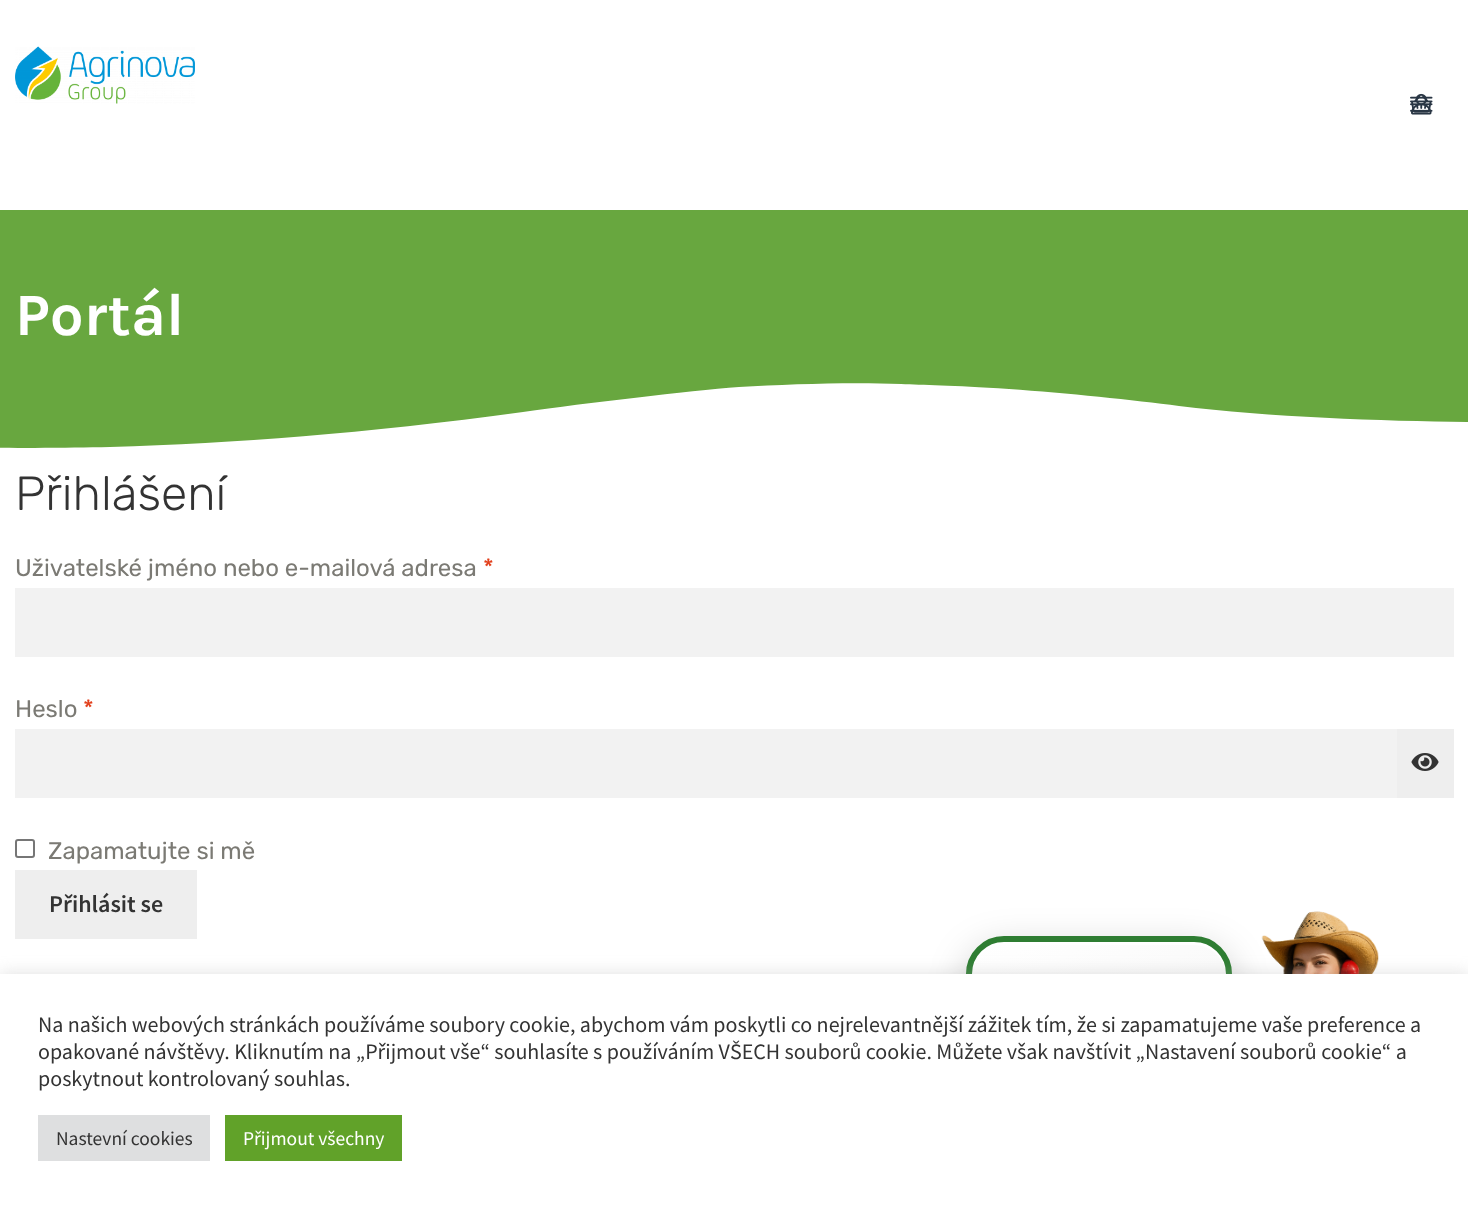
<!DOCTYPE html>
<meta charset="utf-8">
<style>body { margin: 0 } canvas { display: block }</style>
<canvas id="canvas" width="1468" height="1205"></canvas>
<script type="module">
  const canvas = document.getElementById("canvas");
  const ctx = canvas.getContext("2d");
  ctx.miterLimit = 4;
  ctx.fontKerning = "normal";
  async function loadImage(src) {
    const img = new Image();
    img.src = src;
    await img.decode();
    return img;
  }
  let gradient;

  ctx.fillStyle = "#ffffff";
  ctx.fillRect(0, 0, 1468, 1205);
  ctx.drawImage(await loadImage("img1.png"), 15, 46, 180, 58);
  ctx.drawImage(await loadImage("img3.png"), 1410, 95, 23, 18);
  ctx.drawImage(await loadImage("img2.png"), 1411, 93, 21, 22);
  ctx.drawImage(await loadImage("img4.png"), 1410, 96, 23, 16);
  ctx.drawImage(await loadImage("img5.png"), 1261, 911, 118, 63);
  ctx.fillStyle = "rgba(0, 0, 0, 0.2)";
  ctx.filter = "blur(19px)";
  ctx.beginPath();
  ctx.roundRect(966, 948, 266, 110, 38);
  ctx.fill();
  ctx.filter = "none";
  ctx.save();
  ctx.beginPath();
  ctx.roundRect(966, 936, 266, 110, [38, 38, 12, 38]);
  ctx.clip();
  gradient = ctx.createLinearGradient(1034, 898, 1163, 1083);
  gradient.addColorStop(0, "#ffffff");
  gradient.addColorStop(1, "#f8f8f8");
  ctx.fillStyle = gradient;
  ctx.fillRect(972, 942, 254, 32);
  ctx.restore();
  ctx.fillStyle = "rgba(255, 255, 255, 0.9)";
  ctx.beginPath();
  ctx.moveTo(1004, 945);
  ctx.lineTo(1194, 945);
  ctx.bezierCurveTo(1211, 945, 1226, 959, 1226, 976);
  ctx.lineTo(1226, 974);
  ctx.bezierCurveTo(1226, 956, 1212, 942, 1194, 942);
  ctx.lineTo(1004, 942);
  ctx.bezierCurveTo(986, 942, 972, 956, 972, 974);
  ctx.lineTo(972, 976);
  ctx.bezierCurveTo(972, 959, 986, 945, 1004, 945);
  ctx.closePath();
  ctx.fill();
  ctx.beginPath();
  ctx.roundRect(969, 939, 260, 104, [35, 35, 9, 35]);
  ctx.strokeStyle = "#2e7d32";
  ctx.lineWidth = 6;
  ctx.stroke();
  ctx.fillStyle = "#68a73f";
  ctx.fillRect(0, 210, 1468, 238);
  ctx.font = "bold 60px Karla";
  ctx.fillStyle = "#ffffff";
  ctx.fillText("Portál", 15, 335);
  ctx.beginPath();
  ctx.moveTo(110, 447);
  ctx.bezierCurveTo(237, 443, 361, 434, 523, 412);
  ctx.bezierCurveTo(587, 403, 688, 391, 739, 387);
  ctx.bezierCurveTo(790, 384, 852, 382, 901, 384);
  ctx.bezierCurveTo(923, 385, 950, 385, 1009, 389);
  ctx.bezierCurveTo(1067, 393, 1134, 400, 1179, 406);
  ctx.bezierCurveTo(1268, 417, 1383, 421, 1467, 422);
  ctx.bezierCurveTo(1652, 423, 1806, 400, 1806, 400);
  ctx.lineTo(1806, 452);
  ctx.lineTo(-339, 452);
  ctx.lineTo(-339, 428);
  ctx.bezierCurveTo(-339, 428, -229, 441, -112, 445);
  ctx.bezierCurveTo(5, 449, 59, 448, 110, 447);
  ctx.closePath();
  ctx.fill();
  ctx.font = "300 48px Rubik";
  ctx.fillStyle = "#333333";
  ctx.fillText("Přihlášení", 15, 510);
  ctx.font = "24px Rubik";
  ctx.fillStyle = "#7b7a74";
  ctx.fillText("Uživatelské jméno nebo e-mailová adresa", 15, 576);
  ctx.fillStyle = "#e2401c";
  ctx.fillText("*", 483, 576);
  ctx.fillStyle = "#f2f2f2";
  ctx.fillRect(15, 588, 1439, 69);
  ctx.fillStyle = "#7b7a74";
  ctx.fillText("Heslo", 15, 717);
  ctx.fillStyle = "#e2401c";
  ctx.fillText("*", 83, 717);
  ctx.fillStyle = "#f2f2f2";
  ctx.fillRect(15, 729, 1382, 69);
  ctx.fillStyle = "#eeeeee";
  ctx.fillRect(1397, 729, 57, 69);
  ctx.drawImage(await loadImage("img6.png"), 1411, 753, 28, 18);
  ctx.beginPath();
  ctx.roundRect(16, 840, 18, 17, 2);
  ctx.strokeStyle = "#767676";
  ctx.lineWidth = 2;
  ctx.stroke();
  ctx.fillStyle = "#7b7a74";
  ctx.fillText("Zapamatujte si mě", 48, 859);
  ctx.fillStyle = "#eeeeee";
  ctx.fillRect(15, 870, 182, 69);
  ctx.font = "600 24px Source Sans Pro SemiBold";
  ctx.fillStyle = "#333333";
  ctx.fillText("Přihlásit se", 49, 912);
  ctx.fillStyle = "rgba(172, 171, 171, 0.3)";
  ctx.filter = "blur(7.5px)";
  ctx.beginPath();
  ctx.rect(0, 972, 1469, 233);
  ctx.fill();
  ctx.filter = "none";
  ctx.fillStyle = "#ffffff";
  ctx.fillRect(0, 974, 1468, 231);
  ctx.font = "22px Source Sans Pro";
  ctx.fillStyle = "#333333";
  ctx.fillText("Na našich webových stránkách používáme soubory cookie, abychom vám poskytli co nejrelevantnější zážitek tím, že si zapamatujeme vaše preference a", 38, 1032);
  ctx.fillText("opakované návštěvy. Kliknutím na „Přijmout vše“ souhlasíte s používáním VŠECH souborů cookie. Můžete však navštívit „Nastavení souborů cookie“ a", 38, 1059);
  ctx.fillText("poskytnout kontrolovaný souhlas.", 38, 1086);
  ctx.fillStyle = "#dedfe0";
  ctx.fillRect(38, 1115, 172, 46);
  ctx.font = "19.5px Source Sans Pro";
  ctx.fillStyle = "#333333";
  ctx.fillText("Nastevní cookies", 56, 1145);
  ctx.fillStyle = "#61a229";
  ctx.fillRect(225, 1115, 177, 46);
  ctx.fillStyle = "#ffffff";
  ctx.fillText("Přijmout všechny", 243, 1145);
</script>
